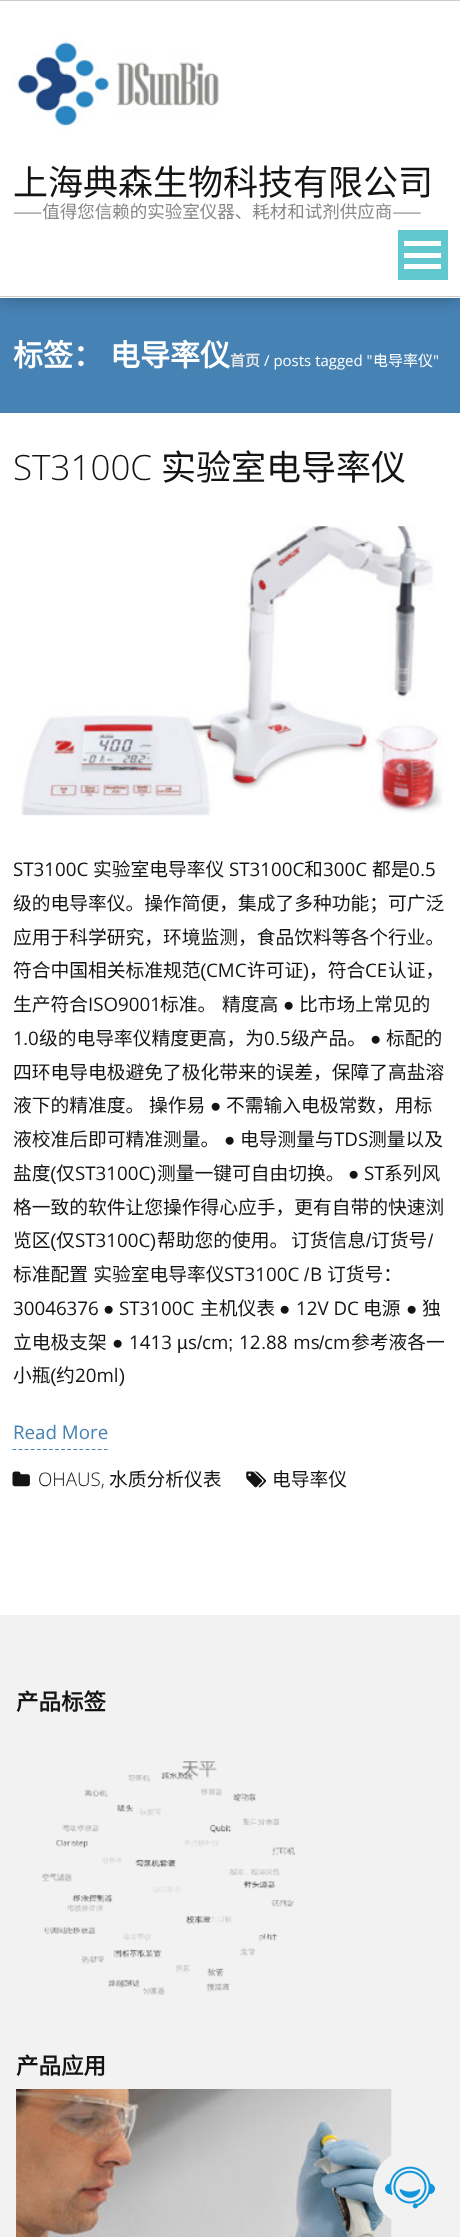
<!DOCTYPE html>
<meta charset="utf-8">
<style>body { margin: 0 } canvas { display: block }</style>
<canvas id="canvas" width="460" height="2237"></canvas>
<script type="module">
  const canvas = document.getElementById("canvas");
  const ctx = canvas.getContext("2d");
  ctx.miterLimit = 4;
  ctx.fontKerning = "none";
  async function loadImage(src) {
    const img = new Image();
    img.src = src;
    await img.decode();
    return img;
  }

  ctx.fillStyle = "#ffffff";
  ctx.fillRect(0, 0, 460, 2237);
  ctx.fillStyle = "#4682b4";
  ctx.fillRect(0, 298, 460, 115);
  ctx.save();
  ctx.beginPath();
  ctx.moveTo(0, 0);
  ctx.lineTo(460, 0);
  ctx.lineTo(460, 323);
  ctx.lineTo(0, 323);
  ctx.closePath();
  ctx.moveTo(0, 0);
  ctx.lineTo(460, 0);
  ctx.lineTo(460, 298);
  ctx.lineTo(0, 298);
  ctx.closePath();
  ctx.clip("evenodd");
  ctx.fillStyle = "rgba(0, 0, 0, 0.3)";
  ctx.filter = "blur(8px)";
  ctx.beginPath();
  ctx.rect(0, 0, 460, 298);
  ctx.fill();
  ctx.filter = "none";
  ctx.restore();
  ctx.fillStyle = "#cdcdcd";
  ctx.fillRect(0, 0, 460, 1);
  ctx.fillRect(0, 296, 460, 1);
  ctx.drawImage(await loadImage("img1.png"), 12, 36, 207, 95);
  ctx.font = "35px Noto Sans CJK SC";
  ctx.fillStyle = "#141414";
  ctx.fillText("上海典森生物科技有限公司", 13, 195);
  ctx.font = "17.5px Noto Sans CJK SC";
  ctx.fillStyle = "#888888";
  ctx.fillText("——值得您信赖的实验室仪器、耗材和试剂供应商——", 13, 218);
  ctx.fillStyle = "#62c8d0";
  ctx.fillRect(398, 230, 50, 50);
  ctx.fillStyle = "#ffffff";
  ctx.fillRect(404, 241, 37, 5);
  ctx.fillRect(404, 253, 37, 5);
  ctx.fillRect(404, 264, 37, 5);
  ctx.font = "bold 30px Noto Sans CJK SC";
  ctx.fillText("标签：", 13, 366);
  ctx.fillText("电导率仪", 110, 366);
  ctx.font = "bold 15px Noto Sans CJK SC";
  ctx.fillStyle = "#e6e6e6";
  ctx.fillText("首页", 230, 366);
  ctx.font = "15px Open Sans";
  ctx.fillStyle = "#ffffff";
  ctx.fillText("/ posts tagged \"", 264, 366);
  ctx.font = "15px Noto Sans CJK SC";
  ctx.fillText("电导率仪", 373, 366);
  ctx.font = "15px Open Sans";
  ctx.fillText("\"", 433, 366);
  ctx.font = "300 35px Open Sans";
  ctx.fillStyle = "#141414";
  ctx.fillText("ST3100C", 13, 480);
  ctx.font = "35px Noto Sans CJK SC";
  ctx.fillText("实验室电导率仪", 161, 480);
  ctx.drawImage(await loadImage("img2.png"), 21, 526, 422, 290);
  ctx.font = "18.75px Open Sans";
  ctx.fillText("ST3100C", 13, 876);
  ctx.font = "18.75px Noto Sans CJK SC";
  ctx.fillText("实验室电导率仪", 93, 876);
  ctx.font = "18.75px Open Sans";
  ctx.fillText("ST3100C", 229, 876);
  ctx.font = "18.75px Noto Sans CJK SC";
  ctx.fillText("和", 304, 876);
  ctx.font = "18.75px Open Sans";
  ctx.fillText("300C", 323, 876);
  ctx.font = "18.75px Noto Sans CJK SC";
  ctx.fillText("都是", 372, 876);
  ctx.font = "18.75px Open Sans";
  ctx.fillText("0", 409, 876);
  ctx.font = "18.75px Liberation Sans";
  ctx.fillText(".", 420, 876);
  ctx.font = "18.75px Open Sans";
  ctx.fillText("5", 425, 876);
  ctx.font = "18.75px Noto Sans CJK SC";
  ctx.fillText("级的电导率仪。操作简便，集成了多种功能；可广泛", 13, 910);
  ctx.fillText("应用于科学研究，环境监测，食品饮料等各个行业。", 13, 944);
  ctx.fillText("符合中国相关标准规范", 13, 977);
  ctx.font = "18.75px Liberation Sans";
  ctx.fillText("(", 200, 977);
  ctx.font = "18.75px Open Sans";
  ctx.fillText("CMC", 206, 977);
  ctx.font = "18.75px Noto Sans CJK SC";
  ctx.fillText("许可证", 247, 977);
  ctx.font = "18.75px Liberation Sans";
  ctx.fillText(")", 303, 977);
  ctx.font = "18.75px Noto Sans CJK SC";
  ctx.fillText("，符合", 309, 977);
  ctx.font = "18.75px Open Sans";
  ctx.fillText("CE", 365, 977);
  ctx.font = "18.75px Noto Sans CJK SC";
  ctx.fillText("认证，", 388, 977);
  ctx.fillText("生产符合", 13, 1011);
  ctx.font = "18.75px Open Sans";
  ctx.fillText("ISO9001", 88, 1011);
  ctx.font = "18.75px Noto Sans CJK SC";
  ctx.fillText("标准。", 160, 1011);
  ctx.fillText("精度高", 222, 1011);
  ctx.font = "18.75px Liberation Sans";
  ctx.fillText("●", 283, 1011);
  ctx.font = "18.75px Noto Sans CJK SC";
  ctx.fillText("比市场上常见的", 299, 1011);
  ctx.font = "18.75px Open Sans";
  ctx.fillText("1", 13, 1045);
  ctx.font = "18.75px Liberation Sans";
  ctx.fillText(".", 23, 1045);
  ctx.font = "18.75px Open Sans";
  ctx.fillText("0", 28, 1045);
  ctx.font = "18.75px Noto Sans CJK SC";
  ctx.fillText("级的电导率仪精度更高，为", 39, 1045);
  ctx.font = "18.75px Open Sans";
  ctx.fillText("0", 264, 1045);
  ctx.font = "18.75px Liberation Sans";
  ctx.fillText(".", 275, 1045);
  ctx.font = "18.75px Open Sans";
  ctx.fillText("5", 280, 1045);
  ctx.font = "18.75px Noto Sans CJK SC";
  ctx.fillText("级产品。", 291, 1045);
  ctx.font = "18.75px Liberation Sans";
  ctx.fillText("●", 370, 1045);
  ctx.font = "18.75px Noto Sans CJK SC";
  ctx.fillText("标配的", 386, 1045);
  ctx.fillText("四环电导电极避免了极化带来的误差，保障了高盐溶", 13, 1079);
  ctx.fillText("液下的精准度。", 13, 1112);
  ctx.fillText("操作易", 149, 1112);
  ctx.font = "18.75px Liberation Sans";
  ctx.fillText("●", 210, 1112);
  ctx.font = "18.75px Noto Sans CJK SC";
  ctx.fillText("不需输入电极常数，用标", 226, 1112);
  ctx.fillText("液校准后即可精准测量。", 13, 1146);
  ctx.font = "18.75px Liberation Sans";
  ctx.fillText("●", 224, 1146);
  ctx.font = "18.75px Noto Sans CJK SC";
  ctx.fillText("电导测量与", 240, 1146);
  ctx.font = "18.75px Open Sans";
  ctx.fillText("TDS", 334, 1146);
  ctx.font = "18.75px Noto Sans CJK SC";
  ctx.fillText("测量以及", 368, 1146);
  ctx.fillText("盐度", 13, 1180);
  ctx.font = "18.75px Liberation Sans";
  ctx.fillText("(", 50, 1180);
  ctx.font = "18.75px Noto Sans CJK SC";
  ctx.fillText("仅", 56, 1180);
  ctx.font = "18.75px Open Sans";
  ctx.fillText("ST3100C", 75, 1180);
  ctx.font = "18.75px Liberation Sans";
  ctx.fillText(")", 150, 1180);
  ctx.font = "18.75px Noto Sans CJK SC";
  ctx.fillText("测量一键可自由切换。", 157, 1180);
  ctx.font = "18.75px Liberation Sans";
  ctx.fillText("●", 348, 1180);
  ctx.font = "18.75px Open Sans";
  ctx.fillText("ST", 364, 1180);
  ctx.font = "18.75px Noto Sans CJK SC";
  ctx.fillText("系列风", 384, 1180);
  ctx.fillText("格一致的软件让您操作得心应手，更有自带的快速浏", 13, 1214);
  ctx.fillText("览区", 13, 1247);
  ctx.font = "18.75px Liberation Sans";
  ctx.fillText("(", 50, 1247);
  ctx.font = "18.75px Noto Sans CJK SC";
  ctx.fillText("仅", 56, 1247);
  ctx.font = "18.75px Open Sans";
  ctx.fillText("ST3100C", 75, 1247);
  ctx.font = "18.75px Liberation Sans";
  ctx.fillText(")", 150, 1247);
  ctx.font = "18.75px Noto Sans CJK SC";
  ctx.fillText("帮助您的使用。", 157, 1247);
  ctx.fillText("订货信息", 291, 1247);
  ctx.font = "18.75px Liberation Sans";
  ctx.fillText("/", 366, 1247);
  ctx.font = "18.75px Noto Sans CJK SC";
  ctx.fillText("订货号", 371, 1247);
  ctx.font = "18.75px Liberation Sans";
  ctx.fillText("/", 428, 1247);
  ctx.wordSpacing = "1px";
  ctx.font = "18.75px Noto Sans CJK SC";
  ctx.fillText("标准配置 实验室电导率仪", 13, 1281);
  ctx.wordSpacing = "0px";
  ctx.font = "18.75px Open Sans";
  ctx.fillText("ST3100C", 224, 1281);
  ctx.font = "18.75px Liberation Sans";
  ctx.fillText("/", 304, 1281);
  ctx.font = "18.75px Open Sans";
  ctx.fillText("B", 310, 1281);
  ctx.font = "18.75px Noto Sans CJK SC";
  ctx.fillText("订货号：", 327, 1281);
  ctx.font = "18.75px Open Sans";
  ctx.fillText("30046376", 13, 1315);
  ctx.font = "18.75px Liberation Sans";
  ctx.fillText("●", 103, 1315);
  ctx.font = "18.75px Open Sans";
  ctx.fillText("ST3100C", 119, 1315);
  ctx.font = "18.75px Noto Sans CJK SC";
  ctx.fillText("主机仪表", 200, 1315);
  ctx.font = "18.75px Liberation Sans";
  ctx.fillText("●", 279, 1315);
  ctx.font = "18.75px Open Sans";
  ctx.fillText("12V DC", 296, 1315);
  ctx.font = "18.75px Noto Sans CJK SC";
  ctx.fillText("电源", 363, 1315);
  ctx.font = "18.75px Liberation Sans";
  ctx.fillText("●", 406, 1315);
  ctx.font = "18.75px Noto Sans CJK SC";
  ctx.fillText("独", 422, 1315);
  ctx.fillText("立电极支架", 13, 1349);
  ctx.font = "18.75px Liberation Sans";
  ctx.fillText("●", 112, 1349);
  ctx.font = "18.75px Open Sans";
  ctx.fillText("1413", 129, 1349);
  ctx.font = "18.75px Liberation Sans";
  ctx.fillText("µ", 177, 1349);
  ctx.font = "18.75px Open Sans";
  ctx.fillText("s", 188, 1349);
  ctx.font = "18.75px Liberation Sans";
  ctx.fillText("/", 197, 1349);
  ctx.font = "18.75px Open Sans";
  ctx.fillText("cm", 202, 1349);
  ctx.font = "18.75px Liberation Sans";
  ctx.fillText(";", 228, 1349);
  ctx.font = "18.75px Open Sans";
  ctx.fillText("12", 239, 1349);
  ctx.font = "18.75px Liberation Sans";
  ctx.fillText(".", 261, 1349);
  ctx.wordSpacing = "1px";
  ctx.font = "18.75px Open Sans";
  ctx.fillText("88 ms", 266, 1349);
  ctx.wordSpacing = "0px";
  ctx.font = "18.75px Liberation Sans";
  ctx.fillText("/", 319, 1349);
  ctx.font = "18.75px Open Sans";
  ctx.fillText("cm", 324, 1349);
  ctx.font = "18.75px Noto Sans CJK SC";
  ctx.fillText("参考液各一", 351, 1349);
  ctx.fillText("小瓶", 13, 1382);
  ctx.font = "18.75px Liberation Sans";
  ctx.fillText("(", 50, 1382);
  ctx.font = "18.75px Noto Sans CJK SC";
  ctx.fillText("约", 56, 1382);
  ctx.font = "18.75px Open Sans";
  ctx.fillText("20ml", 75, 1382);
  ctx.font = "18.75px Liberation Sans";
  ctx.fillText(")", 119, 1382);
  ctx.beginPath();
  ctx.moveTo(12.5, 1449.5);
  ctx.lineTo(107.5, 1449.5);
  ctx.strokeStyle = "#4682b4";
  ctx.lineWidth = 1.2;
  ctx.setLineDash([3.75, 2.34]);
  ctx.stroke();
  ctx.font = "18.75px Open Sans";
  ctx.fillStyle = "#4682b4";
  ctx.fillText("Read More", 13, 1439);
  ctx.drawImage(await loadImage("img3.png"), 12, 1471, 18, 16);
  ctx.font = "300 18.75px Open Sans";
  ctx.fillStyle = "#141414";
  ctx.fillText("OHAUS,", 38, 1486);
  ctx.font = "18.75px Noto Sans CJK SC";
  ctx.fillText("水质分析仪表", 109, 1486);
  ctx.drawImage(await loadImage("img4.png"), 246, 1471, 21, 17);
  ctx.fillText("电导率仪", 272, 1486);
  ctx.fillStyle = "#f2f2f2";
  ctx.fillRect(0, 1615, 460, 622);
  ctx.font = "bold 22.5px Noto Sans CJK SC";
  ctx.fillStyle = "#141414";
  ctx.fillText("产品标签", 16, 1710);
  ctx.drawImage(await loadImage("img5.png"), 42, 1761, 254, 234);
  ctx.fillText("产品应用", 16, 2074);
  ctx.drawImage(await loadImage("img6.png"), 16, 2089, 376, 148);
  ctx.fillStyle = "#f2f2f2";
  ctx.beginPath();
  ctx.arc(410.5, 2187.5, 37.5, 0, Math.PI * 2);
  ctx.fill();
  ctx.drawImage(await loadImage("img7.png"), 385, 2166, 50, 43);
</script>
